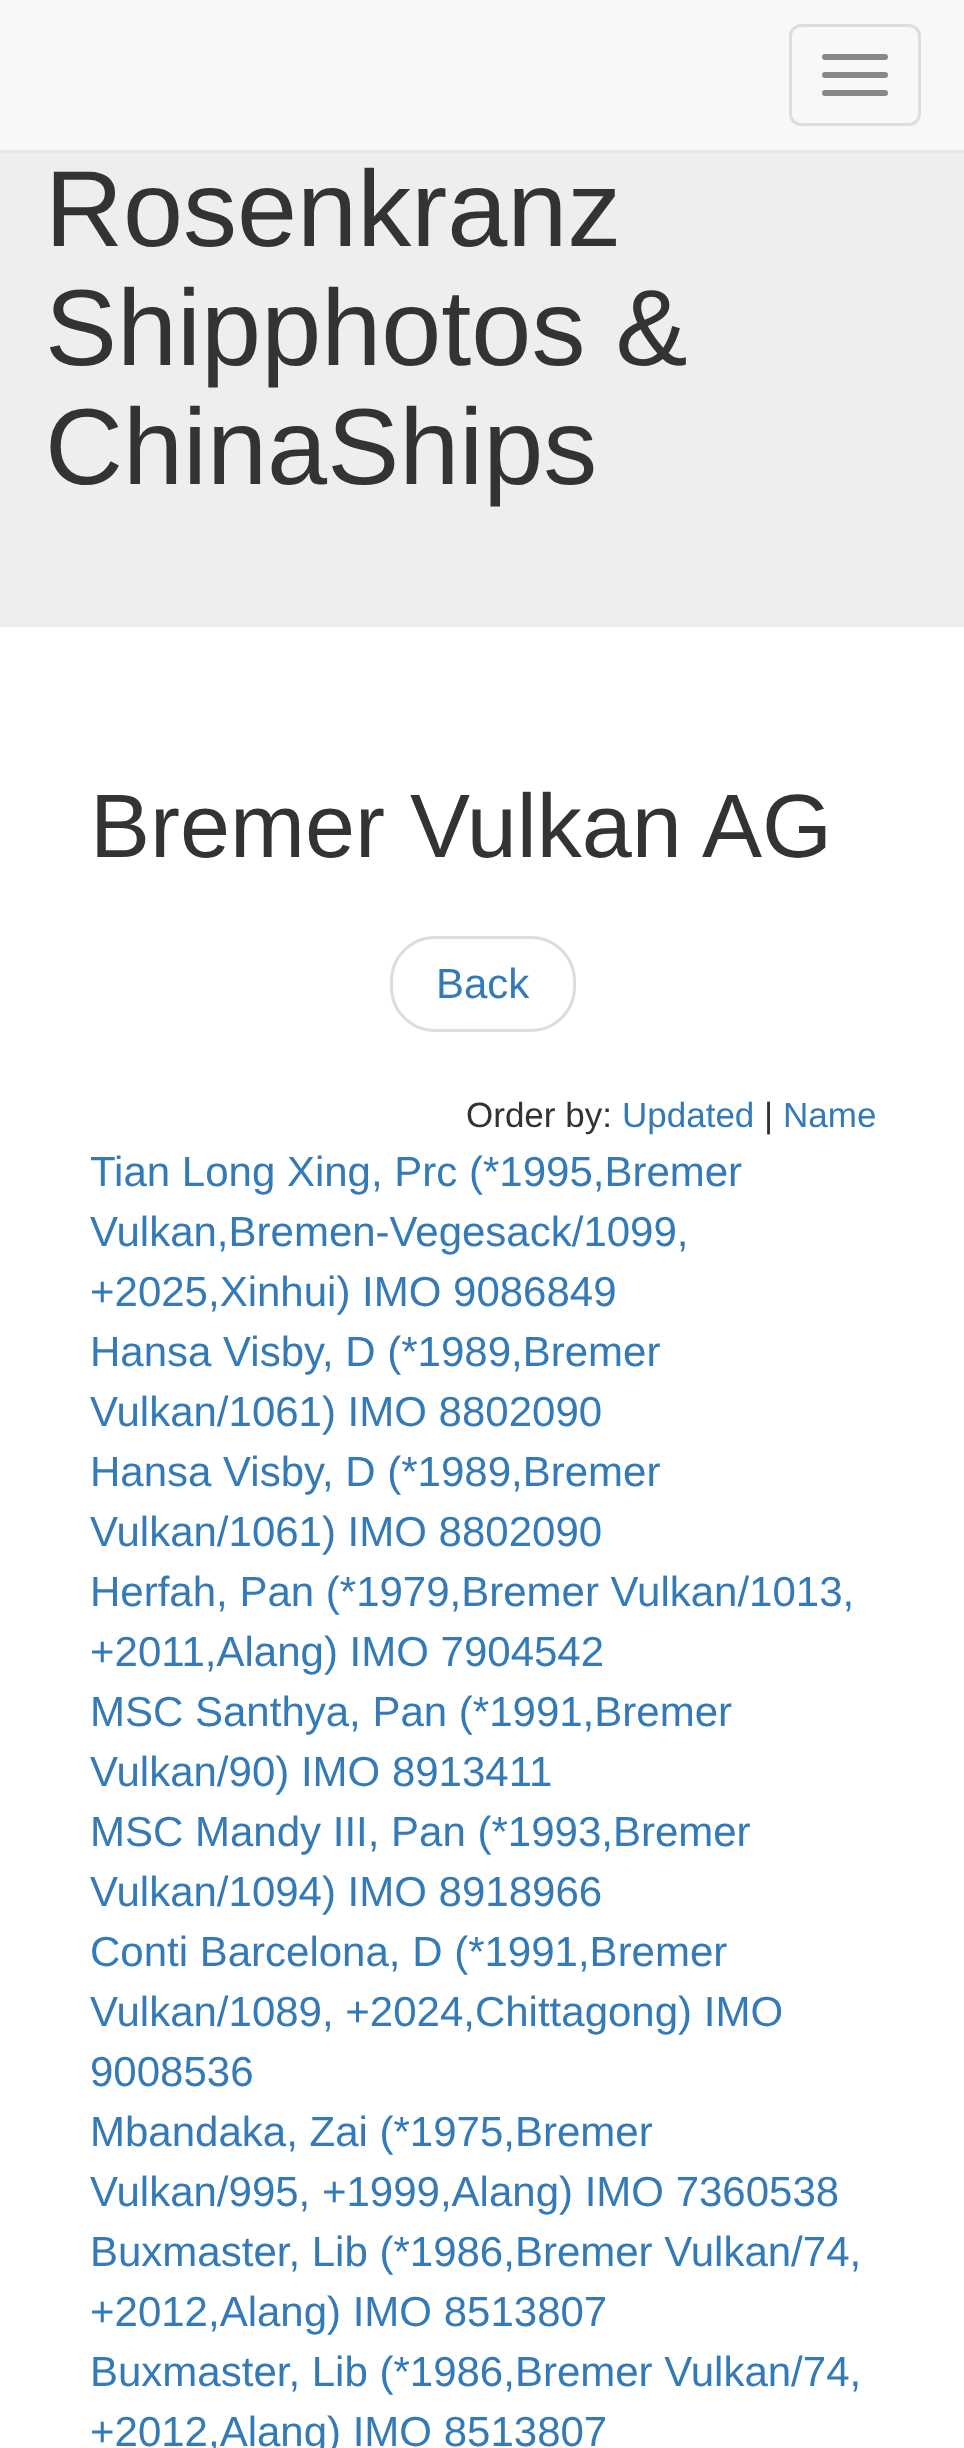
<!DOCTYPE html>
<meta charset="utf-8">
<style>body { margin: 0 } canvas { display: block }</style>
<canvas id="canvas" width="964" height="2448"></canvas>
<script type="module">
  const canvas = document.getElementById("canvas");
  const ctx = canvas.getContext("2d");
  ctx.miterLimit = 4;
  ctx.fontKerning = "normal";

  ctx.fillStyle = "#ffffff";
  ctx.fillRect(0, 0, 964, 2448);
  ctx.fillStyle = "#f8f8f8";
  ctx.fillRect(0, 0, 964, 150);
  ctx.fillStyle = "#e7e7e7";
  ctx.fillRect(0, 150, 964, 3);
  ctx.beginPath();
  ctx.roundRect(790.5, 25.5, 129, 99, 10.5);
  ctx.strokeStyle = "#dddddd";
  ctx.lineWidth = 3;
  ctx.stroke();
  ctx.fillStyle = "#888888";
  ctx.beginPath();
  ctx.roundRect(822, 54, 66, 6, 3);
  ctx.fill();
  ctx.beginPath();
  ctx.roundRect(822, 72, 66, 6, 3);
  ctx.fill();
  ctx.beginPath();
  ctx.roundRect(822, 90, 66, 6, 3);
  ctx.fill();
  ctx.fillStyle = "#eeeeee";
  ctx.fillRect(0, 153, 964, 474);
  ctx.font = "108px Liberation Sans";
  ctx.fillStyle = "#333333";
  ctx.fillText("Rosenkranz", 45, 246);
  ctx.fillText("Shipphotos &", 45, 365);
  ctx.fillText("ChinaShips", 45, 484);
  ctx.font = "90px Liberation Sans";
  ctx.fillText("Bremer Vulkan AG", 90, 857);
  ctx.beginPath();
  ctx.roundRect(391.5, 937.5, 183, 93, 43.5);
  ctx.stroke();
  ctx.font = "42px Liberation Sans";
  ctx.fillStyle = "#337ab7";
  ctx.fillText("Back", 436, 998);
  ctx.font = "35px Liberation Sans";
  ctx.fillStyle = "#333333";
  ctx.fillText("Order by:", 466, 1127);
  ctx.fillStyle = "#337ab7";
  ctx.fillText("Updated", 622, 1127);
  ctx.fillStyle = "#333333";
  ctx.fillText("|", 764, 1127);
  ctx.fillStyle = "#337ab7";
  ctx.fillText("Name", 783, 1127);
  ctx.font = "42px Liberation Sans";
  ctx.fillText("Tian Long Xing, Prc (*1995,Bremer", 90, 1186);
  ctx.fillText("Vulkan,Bremen-Vegesack/1099,", 90, 1246);
  ctx.fillText("+2025,Xinhui) IMO 9086849", 90, 1306);
  ctx.fillText("Hansa Visby, D (*1989,Bremer", 90, 1366);
  ctx.fillText("Vulkan/1061) IMO 8802090", 90, 1426);
  ctx.fillText("Hansa Visby, D (*1989,Bremer", 90, 1486);
  ctx.fillText("Vulkan/1061) IMO 8802090", 90, 1546);
  ctx.fillText("Herfah, Pan (*1979,Bremer Vulkan/1013,", 90, 1606);
  ctx.fillText("+2011,Alang) IMO 7904542", 90, 1666);
  ctx.fillText("MSC Santhya, Pan (*1991,Bremer", 90, 1726);
  ctx.fillText("Vulkan/90) IMO 8913411", 90, 1786);
  ctx.fillText("MSC Mandy III, Pan (*1993,Bremer", 90, 1846);
  ctx.fillText("Vulkan/1094) IMO 8918966", 90, 1906);
  ctx.fillText("Conti Barcelona, D (*1991,Bremer", 90, 1966);
  ctx.fillText("Vulkan/1089, +2024,Chittagong) IMO", 90, 2026);
  ctx.fillText("9008536", 90, 2086);
  ctx.fillText("Mbandaka, Zai (*1975,Bremer", 90, 2146);
  ctx.fillText("Vulkan/995, +1999,Alang) IMO 7360538", 90, 2206);
  ctx.fillText("Buxmaster, Lib (*1986,Bremer Vulkan/74,", 90, 2266);
  ctx.fillText("+2012,Alang) IMO 8513807", 90, 2326);
  ctx.fillText("Buxmaster, Lib (*1986,Bremer Vulkan/74,", 90, 2386);
  ctx.fillText("+2012,Alang) IMO 8513807", 90, 2446);
</script>
